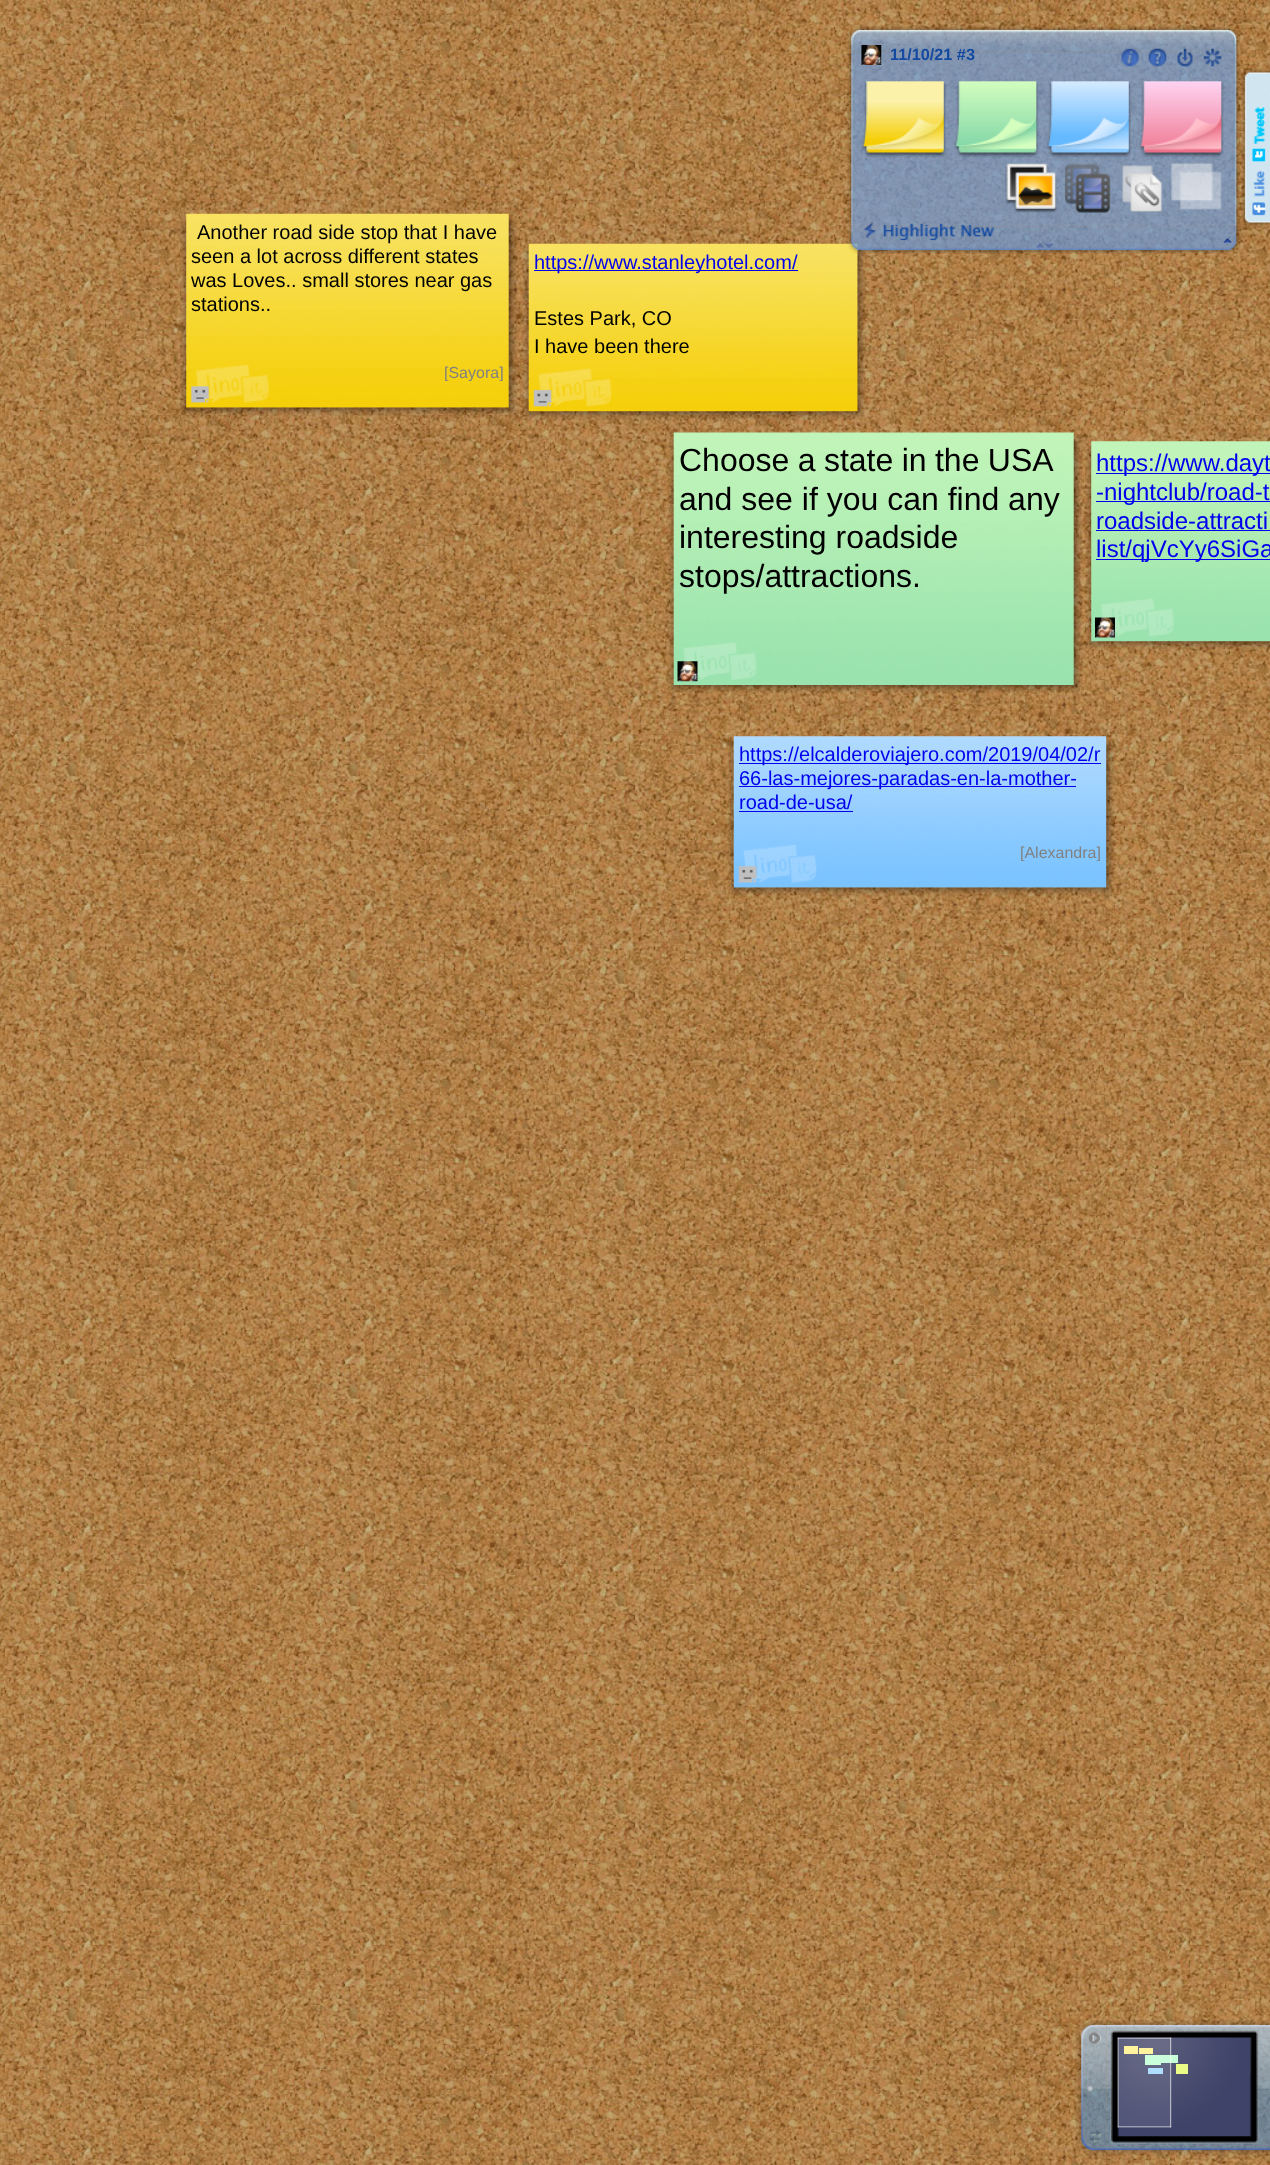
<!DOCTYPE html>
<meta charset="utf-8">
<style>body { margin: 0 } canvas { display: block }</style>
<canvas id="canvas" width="1270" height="2165"></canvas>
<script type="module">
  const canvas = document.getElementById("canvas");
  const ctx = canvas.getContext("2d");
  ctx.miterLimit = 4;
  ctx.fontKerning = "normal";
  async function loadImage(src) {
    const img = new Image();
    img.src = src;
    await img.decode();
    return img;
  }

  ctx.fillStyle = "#ffffff";
  ctx.fillRect(0, 0, 1270, 2165);
  ctx.drawImage(await loadImage("img21.png"), 0, 0, 1270, 2165);
  ctx.drawImage(await loadImage("img1.png"), 847, 26, 394, 26);
  ctx.drawImage(await loadImage("img2.png"), 847, 51, 394, 176);
  ctx.drawImage(await loadImage("img32.png"), 523, 246, 6, 8);
  ctx.drawImage(await loadImage("img35.png"), 523, 253, 6, 159);
  ctx.drawImage(await loadImage("img37.png"), 523, 411, 6, 8);
  ctx.drawImage(await loadImage("img33.png"), 528, 243, 330, 169);
  ctx.drawImage(await loadImage("img34.png"), 857, 245, 9, 9);
  ctx.drawImage(await loadImage("img36.png"), 857, 253, 9, 159);
  ctx.drawImage(await loadImage("img3.png"), 847, 226, 394, 28);
  ctx.drawImage(await loadImage("img4.png"), 861, 45, 21, 20);
  ctx.font = "bold 16.25px Liberation Sans";
  ctx.fillStyle = "#1349a0";
  ctx.fillText("11/10/21 #3", 890, 60);
  ctx.drawImage(await loadImage("img5.png"), 1121, 48, 18, 19);
  ctx.drawImage(await loadImage("img6.png"), 1148, 48, 19, 19);
  ctx.drawImage(await loadImage("img7.png"), 1177, 48, 16, 19);
  ctx.drawImage(await loadImage("img8.png"), 1203, 48, 19, 19);
  ctx.drawImage(await loadImage("img9.png"), 861, 81, 85, 77);
  ctx.drawImage(await loadImage("img10.png"), 954, 81, 85, 77);
  ctx.drawImage(await loadImage("img11.png"), 1046, 81, 85, 77);
  ctx.drawImage(await loadImage("img12.png"), 1139, 81, 85, 77);
  ctx.drawImage(await loadImage("img13.png"), 1005, 163, 53, 50);
  ctx.drawImage(await loadImage("img14.png"), 1064, 163, 47, 50);
  ctx.drawImage(await loadImage("img15.png"), 1122, 165, 41, 47);
  ctx.drawImage(await loadImage("img16.png"), 1171, 162, 51, 48);
  ctx.drawImage(await loadImage("img17.png"), 863, 222, 131, 19);
  ctx.drawImage(await loadImage("img18.png"), 1223, 238, 9, 5);
  ctx.drawImage(await loadImage("img19.png"), 1036, 243, 17, 5);
  ctx.drawImage(await loadImage("img20.png"), 1241, 68, 29, 159);
  ctx.drawImage(await loadImage("img22.png"), 181, 216, 6, 8);
  ctx.drawImage(await loadImage("img25.png"), 180, 223, 7, 185);
  ctx.drawImage(await loadImage("img27.png"), 181, 407, 6, 9);
  ctx.drawImage(await loadImage("img23.png"), 186, 213, 323, 195);
  ctx.drawImage(await loadImage("img24.png"), 508, 215, 9, 9);
  ctx.drawImage(await loadImage("img26.png"), 508, 223, 9, 185);
  ctx.drawImage(await loadImage("img29.png"), 508, 407, 9, 9);
  ctx.drawImage(await loadImage("img28.png"), 186, 407, 323, 9);
  ctx.font = "20px Liberation Sans";
  ctx.fillStyle = "#000000";
  ctx.fillText("Another road side stop that I have", 197, 239);
  ctx.fillText("seen a lot across different states", 191, 263);
  ctx.fillText("was Loves.. small stores near gas", 191, 287);
  ctx.fillText("stations..", 191, 311);
  ctx.save();
  ctx.beginPath();
  ctx.rect(191, 363, 313, 18);
  ctx.clip();
  ctx.font = "16px Liberation Sans";
  ctx.fillStyle = "#808080";
  ctx.fillText("[Sayora]", 444, 378);
  ctx.restore();
  ctx.drawImage(await loadImage("img31.png"), 196, 365, 73, 38);
  ctx.drawImage(await loadImage("img30.png"), 191, 386, 18, 17);
  ctx.drawImage(await loadImage("img39.png"), 857, 411, 9, 9);
  ctx.drawImage(await loadImage("img38.png"), 528, 411, 330, 9);
  ctx.fillStyle = "#0000ee";
  ctx.fillRect(534, 270, 264, 1);
  ctx.fillText("https://www.stanleyhotel.com/", 534, 269);
  ctx.fillStyle = "#000000";
  ctx.fillText("Estes Park, CO", 534, 325);
  ctx.fillText("I have been there", 534, 353);
  ctx.drawImage(await loadImage("img41.png"), 538, 368, 74, 39);
  ctx.drawImage(await loadImage("img40.png"), 533, 389, 19, 18);
  ctx.drawImage(await loadImage("img42.png"), 668, 435, 6, 8);
  ctx.drawImage(await loadImage("img45.png"), 668, 442, 6, 243);
  ctx.drawImage(await loadImage("img43.png"), 673, 432, 401, 253);
  ctx.drawImage(await loadImage("img44.png"), 1073, 434, 9, 9);
  ctx.drawImage(await loadImage("img46.png"), 1073, 442, 9, 243);
  ctx.drawImage(await loadImage("img47.png"), 668, 685, 6, 8);
  ctx.drawImage(await loadImage("img49.png"), 1073, 685, 9, 9);
  ctx.drawImage(await loadImage("img48.png"), 673, 685, 401, 8);
  ctx.wordSpacing = "-0.5px";
  ctx.font = "32px Liberation Sans";
  ctx.fillText("Choose a state in the USA", 679, 471);
  ctx.wordSpacing = "0px";
  ctx.fillText("and see if you can find any", 679, 510);
  ctx.fillText("interesting roadside", 679, 548);
  ctx.fillText("stops/attractions.", 679, 587);
  ctx.drawImage(await loadImage("img51.png"), 683, 642, 74, 38);
  ctx.drawImage(await loadImage("img50.png"), 677, 661, 21, 21);
  ctx.drawImage(await loadImage("img52.png"), 1086, 444, 6, 8);
  ctx.drawImage(await loadImage("img54.png"), 1085, 451, 7, 191);
  ctx.drawImage(await loadImage("img55.png"), 1086, 641, 6, 8);
  ctx.drawImage(await loadImage("img53.png"), 1091, 441, 179, 201);
  ctx.drawImage(await loadImage("img56.png"), 1091, 641, 179, 9);
  ctx.fillStyle = "#0000ee";
  ctx.fillRect(1096, 473, 174, 1);
  ctx.font = "24px Liberation Sans";
  ctx.fillText("https://www.dayt", 1096, 471);
  ctx.fillRect(1096, 501, 174, 1);
  ctx.fillText("-nightclub/road-t", 1096, 500);
  ctx.fillText("roadside-attracti", 1096, 529);
  ctx.fillRect(1096, 530, 174, 1);
  ctx.fillRect(1096, 559, 174, 1);
  ctx.fillText("list/qjVcYy6SiGa", 1096, 557);
  ctx.drawImage(await loadImage("img58.png"), 1101, 598, 73, 39);
  ctx.drawImage(await loadImage("img57.png"), 1095, 617, 20, 21);
  ctx.drawImage(await loadImage("img59.png"), 728, 739, 6, 8);
  ctx.drawImage(await loadImage("img62.png"), 728, 746, 6, 142);
  ctx.drawImage(await loadImage("img64.png"), 728, 887, 6, 8);
  ctx.drawImage(await loadImage("img60.png"), 733, 736, 374, 152);
  ctx.drawImage(await loadImage("img61.png"), 1106, 738, 8, 9);
  ctx.drawImage(await loadImage("img63.png"), 1106, 746, 9, 142);
  ctx.drawImage(await loadImage("img66.png"), 1106, 887, 9, 9);
  ctx.drawImage(await loadImage("img65.png"), 733, 887, 374, 9);
  ctx.fillRect(739, 763, 362, 1);
  ctx.font = "20px Liberation Sans";
  ctx.fillText("https://elcalderoviajero.com/2019/04/02/r", 739, 761);
  ctx.fillRect(739, 786, 337, 1);
  ctx.fillText("66-las-mejores-paradas-en-la-mother-", 739, 785);
  ctx.fillText("road-de-usa/", 739, 809);
  ctx.fillRect(739, 811, 114, 1);
  ctx.save();
  ctx.beginPath();
  ctx.rect(739, 843, 362, 18);
  ctx.clip();
  ctx.font = "16px Liberation Sans";
  ctx.fillStyle = "#808080";
  ctx.fillText("[Alexandra]", 1020, 858);
  ctx.restore();
  ctx.drawImage(await loadImage("img68.png"), 743, 845, 74, 38);
  ctx.drawImage(await loadImage("img67.png"), 738, 866, 19, 17);
  ctx.drawImage(await loadImage("img72.png"), 1106, 2020, 164, 136);
  ctx.drawImage(await loadImage("img69.png"), 1075, 2020, 32, 136);
  ctx.drawImage(await loadImage("img70.png"), 1088, 2032, 14, 12);
  ctx.drawImage(await loadImage("img71.png"), 1089, 2130, 13, 13);
  ctx.drawImage(await loadImage("img73.png"), 1110, 2030, 149, 114);
  ctx.fillStyle = "#fff293";
  ctx.fillRect(1124, 2046, 14, 8);
  ctx.fillRect(1139, 2048, 14, 6);
  ctx.fillStyle = "#c4ffd8";
  ctx.fillRect(1145, 2055, 16, 10);
  ctx.fillRect(1161, 2055, 17, 8);
  ctx.fillStyle = "#a6dbff";
  ctx.fillRect(1148, 2068, 15, 6);
  ctx.fillStyle = "rgba(255, 255, 255, 0.1)";
  ctx.fillRect(1117, 2037, 55, 91);
  ctx.drawImage(await loadImage("img74.png"), 1117, 2037, 2, 91);
  ctx.drawImage(await loadImage("img75.png"), 1117, 2037, 55, 2);
  ctx.drawImage(await loadImage("img76.png"), 1170, 2037, 2, 91);
  ctx.drawImage(await loadImage("img77.png"), 1117, 2126, 55, 2);
  ctx.fillStyle = "#eafc86";
  ctx.fillRect(1176, 2064, 12, 10);
</script>
